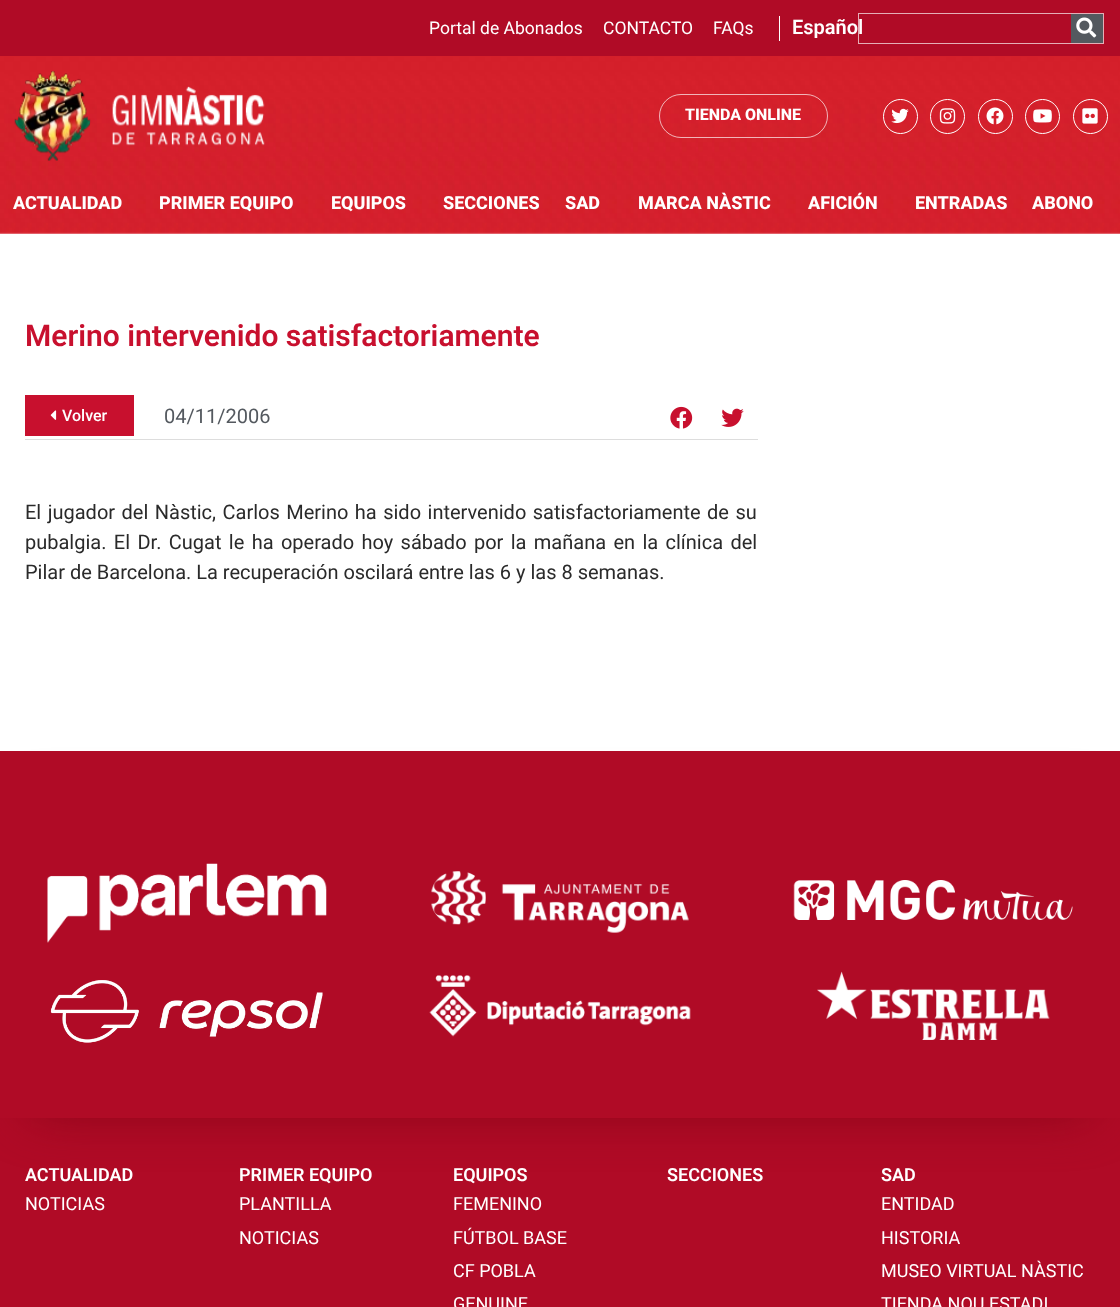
<!DOCTYPE html>
<meta charset="utf-8">
<style>body { margin: 0 } canvas { display: block }</style>
<canvas id="canvas" width="1120" height="1307"></canvas>
<script type="module">
  const canvas = document.getElementById("canvas");
  const ctx = canvas.getContext("2d");
  ctx.miterLimit = 4;
  ctx.fontKerning = "normal";
  async function loadImage(src) {
    const img = new Image();
    img.src = src;
    await img.decode();
    return img;
  }

  ctx.fillStyle = "#ffffff";
  ctx.fillRect(0, 0, 1120, 1307);
  ctx.drawImage(await loadImage("img1.png"), 0, 56, 1120, 178);
  ctx.fillStyle = "#b00b26";
  ctx.fillRect(0, 0, 1120, 56);
  ctx.font = "17.5px Roboto";
  ctx.fillStyle = "#ffffff";
  ctx.fillText("Portal de Abonados", 429, 34);
  ctx.fillText("CONTACTO", 603, 34);
  ctx.fillText("FAQs", 713, 34);
  ctx.fillRect(779, 16, 1, 25);
  ctx.strokeStyle = "#e5aeb7";
  ctx.strokeRect(858.5, 13.5, 245, 30);
  ctx.font = "600 20px Roboto";
  ctx.fillText("Español", 792, 34);
  ctx.fillStyle = "#54595f";
  ctx.fillRect(1071, 14, 32, 29);
  ctx.drawImage(await loadImage("img2.png"), 1076, 17, 21, 21);
  ctx.drawImage(await loadImage("img3.png"), 14, 71, 251, 90);
  ctx.beginPath();
  ctx.roundRect(659.5, 94.5, 168, 43, 21.5);
  ctx.strokeStyle = "rgba(255, 255, 255, 0.67)";
  ctx.stroke();
  ctx.font = "800 16px Roboto";
  ctx.fillStyle = "#ffffff";
  ctx.fillText("TIENDA ONLINE", 685, 120);
  ctx.beginPath();
  ctx.arc(900.5, 116.5, 17, 0, Math.PI * 2);
  ctx.strokeStyle = "#ffffff";
  ctx.stroke();
  ctx.drawImage(await loadImage("img4.png"), 891, 108, 18, 16);
  ctx.beginPath();
  ctx.arc(947.5, 116.5, 17, 0, Math.PI * 2);
  ctx.stroke();
  ctx.drawImage(await loadImage("img5.png"), 939, 108, 17, 16);
  ctx.beginPath();
  ctx.arc(995.5, 116.5, 17, 0, Math.PI * 2);
  ctx.stroke();
  ctx.drawImage(await loadImage("img6.png"), 986, 107, 18, 18);
  ctx.beginPath();
  ctx.arc(1042.5, 116.5, 17, 0, Math.PI * 2);
  ctx.stroke();
  ctx.drawImage(await loadImage("img7.png"), 1033, 109, 19, 14);
  ctx.beginPath();
  ctx.arc(1090.5, 116.5, 17, 0, Math.PI * 2);
  ctx.stroke();
  ctx.drawImage(await loadImage("img8.png"), 1082, 108, 16, 16);
  ctx.font = "800 18px Roboto";
  ctx.fillText("ACTUALIDAD", 13, 209);
  ctx.fillText("PRIMER EQUIPO", 159, 209);
  ctx.fillText("EQUIPOS", 331, 209);
  ctx.fillText("SECCIONES", 443, 209);
  ctx.fillText("SAD", 565, 209);
  ctx.fillText("MARCA NÀSTIC", 638, 209);
  ctx.fillText("AFICIÓN", 808, 209);
  ctx.fillText("ENTRADAS", 915, 209);
  ctx.fillText("ABONO", 1032, 209);
  ctx.font = "600 30px Roboto";
  ctx.fillStyle = "#c8102e";
  ctx.fillText("Merino intervenido satisfactoriamente", 25, 346);
  ctx.fillRect(25, 395, 109, 41);
  ctx.drawImage(await loadImage("img9.png"), 50, 410, 7, 10);
  ctx.font = "500 16px Roboto";
  ctx.fillStyle = "#ffffff";
  ctx.fillText("Volver", 62, 421);
  ctx.font = "20px Roboto";
  ctx.fillStyle = "#54595f";
  ctx.fillText("04/11/2006", 164, 423);
  ctx.drawImage(await loadImage("img10.png"), 670, 406, 23, 23);
  ctx.drawImage(await loadImage("img11.png"), 721, 408, 23, 19);
  ctx.fillStyle = "#dddddd";
  ctx.fillRect(25, 439, 733, 1);
  ctx.wordSpacing = "1.5px";
  ctx.fillStyle = "#2a2a2a";
  ctx.fillText("El jugador del Nàstic, Carlos Merino ha sido intervenido satisfactoriamente de su", 25, 519);
  ctx.wordSpacing = "2.4px";
  ctx.fillText("pubalgia. El Dr. Cugat le ha operado hoy sábado por la mañana en la clínica del", 25, 549);
  ctx.wordSpacing = "0px";
  ctx.fillText("Pilar de Barcelona. La recuperación oscilará entre las 6 y las 8 semanas.", 25, 579);
  ctx.fillStyle = "#b00b26";
  ctx.fillRect(0, 1118, 1120, 189);
  ctx.fillStyle = "rgba(134, 3, 22, 0.99)";
  ctx.filter = "blur(25.5px)";
  ctx.beginPath();
  ctx.rect(31, 808, 1058, 303);
  ctx.fill();
  ctx.filter = "none";
  ctx.fillStyle = "#b00b26";
  ctx.fillRect(0, 751, 1120, 367);
  ctx.drawImage(await loadImage("img12.png"), 47, 863, 280, 80);
  ctx.drawImage(await loadImage("img13.png"), 431, 871, 258, 62);
  ctx.drawImage(await loadImage("img14.png"), 793, 880, 280, 40);
  ctx.drawImage(await loadImage("img15.png"), 50, 980, 273, 63);
  ctx.drawImage(await loadImage("img16.png"), 429, 975, 262, 62);
  ctx.drawImage(await loadImage("img17.png"), 817, 971, 233, 69);
  ctx.font = "600 18px Roboto";
  ctx.fillStyle = "#ffffff";
  ctx.fillText("ACTUALIDAD", 25, 1181);
  ctx.font = "18px Roboto";
  ctx.fillText("NOTICIAS", 25, 1210);
  ctx.font = "600 18px Roboto";
  ctx.fillText("PRIMER EQUIPO", 239, 1181);
  ctx.font = "18px Roboto";
  ctx.fillText("PLANTILLA", 239, 1210);
  ctx.fillText("NOTICIAS", 239, 1244);
  ctx.font = "600 18px Roboto";
  ctx.fillText("EQUIPOS", 453, 1181);
  ctx.font = "18px Roboto";
  ctx.fillText("FEMENINO", 453, 1210);
  ctx.fillText("FÚTBOL BASE", 453, 1244);
  ctx.fillText("CF POBLA", 453, 1277);
  ctx.fillText("GENUINE", 453, 1310);
  ctx.font = "600 18px Roboto";
  ctx.fillText("SECCIONES", 667, 1181);
  ctx.fillText("SAD", 881, 1181);
  ctx.font = "18px Roboto";
  ctx.fillText("ENTIDAD", 881, 1210);
  ctx.fillText("HISTORIA", 881, 1244);
  ctx.fillText("MUSEO VIRTUAL NÀSTIC", 881, 1277);
  ctx.fillText("TIENDA NOU ESTADI", 881, 1310);
</script>
